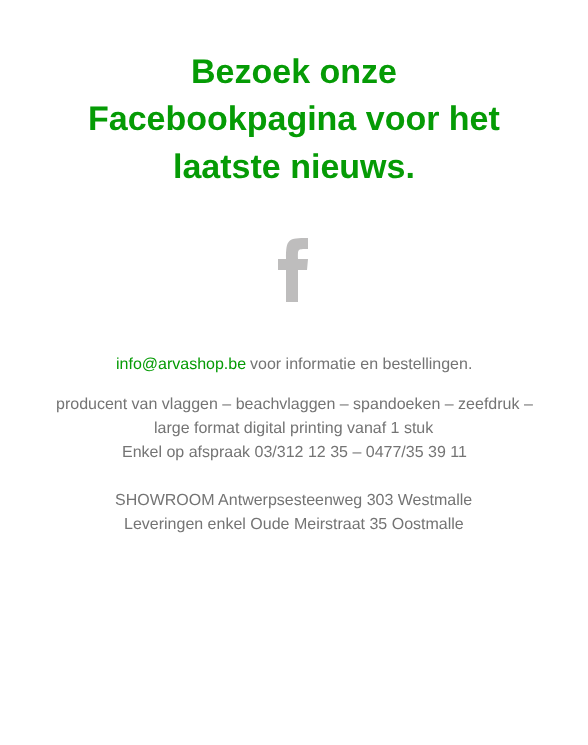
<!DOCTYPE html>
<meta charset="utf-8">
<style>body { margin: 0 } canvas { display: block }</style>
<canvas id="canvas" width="588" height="745"></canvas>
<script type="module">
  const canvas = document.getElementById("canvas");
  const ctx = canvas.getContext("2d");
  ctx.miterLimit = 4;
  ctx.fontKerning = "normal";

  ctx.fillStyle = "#ffffff";
  ctx.fillRect(0, 0, 588, 745);
  ctx.font = "bold 34px Liberation Sans";
  ctx.fillStyle = "#059b05";
  ctx.fillText("Bezoek onze", 191, 83);
  ctx.fillText("Facebookpagina voor het", 88, 130);
  ctx.fillText("laatste nieuws.", 173, 178);
  ctx.fillStyle = "#bebdbd";
  ctx.beginPath();
  ctx.moveTo(298, 302);
  ctx.lineTo(286, 302);
  ctx.lineTo(286, 270);
  ctx.lineTo(278, 270);
  ctx.lineTo(278, 259);
  ctx.lineTo(286, 259);
  ctx.bezierCurveTo(286, 239, 288, 238, 308, 238);
  ctx.lineTo(308, 249);
  ctx.bezierCurveTo(297, 249, 298, 249, 298, 259);
  ctx.lineTo(308, 259);
  ctx.lineTo(307, 270);
  ctx.lineTo(298, 270);
  ctx.closePath();
  ctx.fill();
  ctx.font = "16px Liberation Sans";
  ctx.fillStyle = "#059b05";
  ctx.fillText("info@arvashop.be", 116, 369);
  ctx.fillStyle = "#747474";
  ctx.fillText("voor informatie en bestellingen.", 250, 369);
  ctx.fillText("producent van vlaggen – beachvlaggen – spandoeken – zeefdruk –", 56, 409);
  ctx.fillText("large format digital printing vanaf 1 stuk", 154, 433);
  ctx.fillText("Enkel op afspraak 03/312 12 35 – 0477/35 39 11", 122, 457);
  ctx.fillText("SHOWROOM Antwerpsesteenweg 303 Westmalle", 115, 505);
  ctx.fillText("Leveringen enkel Oude Meirstraat 35 Oostmalle", 124, 529);
</script>
